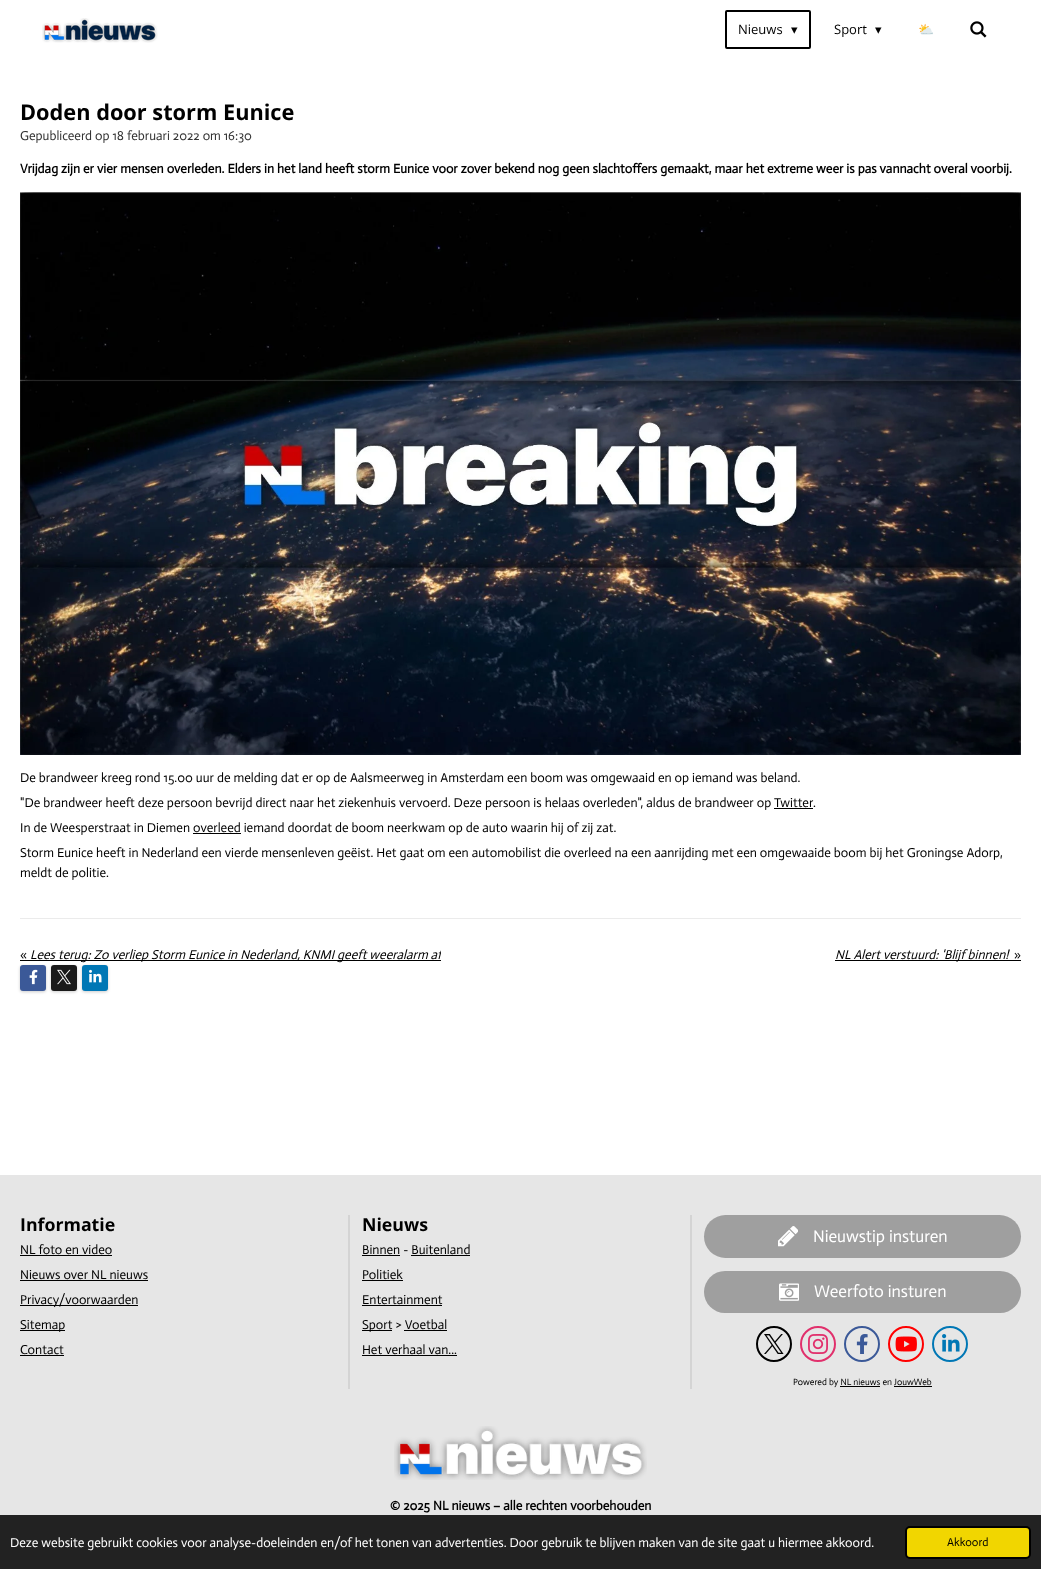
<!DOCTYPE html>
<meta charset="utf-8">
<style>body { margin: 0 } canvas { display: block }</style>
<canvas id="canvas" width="1041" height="1569"></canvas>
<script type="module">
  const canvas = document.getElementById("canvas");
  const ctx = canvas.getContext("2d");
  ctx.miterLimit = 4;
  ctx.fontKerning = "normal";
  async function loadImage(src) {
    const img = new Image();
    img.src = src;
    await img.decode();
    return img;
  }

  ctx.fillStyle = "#ffffff";
  ctx.fillRect(0, 0, 1041, 1569);
  ctx.drawImage(await loadImage("img1.png"), 42, 18, 116, 25);
  ctx.beginPath();
  ctx.roundRect(726, 11, 84, 37, 1);
  ctx.strokeStyle = "#000000";
  ctx.lineWidth = 2;
  ctx.stroke();
  ctx.font = "13px Open Sans";
  ctx.fillStyle = "#000000";
  ctx.fillText("Nieuws", 738, 34);
  ctx.font = "13px DejaVu Sans";
  ctx.fillText("▾", 791, 34);
  ctx.font = "13px Open Sans";
  ctx.fillText("Sport", 834, 34);
  ctx.font = "13px DejaVu Sans";
  ctx.fillText("▾", 875, 34);
  ctx.font = "13px Noto Color Emoji";
  ctx.fillText("⛅", 918, 34);
  ctx.drawImage(await loadImage("img2.png"), 970, 21, 17, 17);
  ctx.font = "bold 21.75px Open Sans";
  ctx.fillText("Doden door storm Eunice", 20, 120);
  ctx.font = "13px Actor";
  ctx.fillStyle = "#333333";
  ctx.fillText("Gepubliceerd op 18 februari 2022 om 16:30", 20, 140);
  ctx.font = "bold 13px Actor";
  ctx.fillStyle = "#000000";
  ctx.fillText("Vrijdag zijn er vier mensen overleden. Elders in het land heeft storm Eunice voor zover bekend nog geen slachtoffers gemaakt, maar het extreme weer is pas vannacht overal voorbij.", 20, 173);
  ctx.drawImage(await loadImage("img3.png"), 20, 192, 1001, 563);
  ctx.font = "13px Actor";
  ctx.fillText("De brandweer kreeg rond 15.00 uur de melding dat er op de Aalsmeerweg in Amsterdam een boom was omgewaaid en op iemand was beland.", 20, 782);
  ctx.fillText("\"De brandweer heeft deze persoon bevrijd direct naar het ziekenhuis vervoerd. Deze persoon is helaas overleden\", aldus de brandweer op Twitter", 20, 807);
  ctx.fillText(".", 813, 807);
  ctx.fillRect(774, 808, 39, 1);
  ctx.fillText("In de Weesperstraat in Diemen overleed iemand doordat de boom neerkwam op de auto waarin hij of zij zat.", 20, 832);
  ctx.fillRect(193, 833, 48, 1);
  ctx.fillText("Storm Eunice heeft in Nederland een vierde mensenleven geëist. Het gaat om een automobilist die overleed na een aanrijding met een omgewaaide boom bij het Groningse Adorp,", 20, 857);
  ctx.fillText("meldt de politie.", 20, 877);
  ctx.fillStyle = "#ebebeb";
  ctx.fillRect(20, 918, 1001, 1);
  ctx.fillStyle = "#000000";
  ctx.fillText("«", 20, 959);
  ctx.fillRect(20, 960, 421, 1);
  ctx.save();
  ctx.beginPath();
  ctx.rect(30, 945, 411, 20);
  ctx.clip();
  ctx.font = "italic 13px Actor";
  ctx.fillText("Lees terug: Zo verliep Storm Eunice in Nederland, KNMI geeft weeralarm af", 30, 959);
  ctx.restore();
  ctx.fillRect(835, 960, 186, 1);
  ctx.save();
  ctx.beginPath();
  ctx.rect(835, 945, 176, 20);
  ctx.clip();
  ctx.font = "italic 13px Actor";
  ctx.fillText("NL Alert verstuurd: 'Blijf binnen!'", 835, 959);
  ctx.restore();
  ctx.fillText("»", 1014, 959);
  ctx.fillStyle = "rgba(0, 0, 0, 0.2)";
  ctx.filter = "blur(1.5px)";
  ctx.beginPath();
  ctx.roundRect(20, 966, 26, 26, 3);
  ctx.fill();
  ctx.filter = "none";
  ctx.fillStyle = "#3b5998";
  ctx.beginPath();
  ctx.roundRect(20, 965, 26, 26, 3);
  ctx.fill();
  ctx.drawImage(await loadImage("img4.png"), 29, 969, 9, 16);
  ctx.fillStyle = "rgba(0, 0, 0, 0.2)";
  ctx.filter = "blur(1.5px)";
  ctx.beginPath();
  ctx.roundRect(51, 966, 26, 26, 3);
  ctx.fill();
  ctx.filter = "none";
  ctx.fillStyle = "#1a1a1a";
  ctx.beginPath();
  ctx.roundRect(51, 965, 26, 26, 3);
  ctx.fill();
  ctx.drawImage(await loadImage("img5.png"), 57, 969, 14, 16);
  ctx.fillStyle = "rgba(0, 0, 0, 0.2)";
  ctx.filter = "blur(1.5px)";
  ctx.beginPath();
  ctx.roundRect(82, 966, 26, 26, 3);
  ctx.fill();
  ctx.filter = "none";
  ctx.fillStyle = "#0077b5";
  ctx.beginPath();
  ctx.roundRect(82, 965, 26, 26, 3);
  ctx.fill();
  ctx.drawImage(await loadImage("img6.png"), 89, 969, 13, 14);
  ctx.fillStyle = "#e6e6e6";
  ctx.fillRect(0, 1175, 1041, 340);
  ctx.fillStyle = "#d4d4d4";
  ctx.fillRect(348, 1215, 2, 174);
  ctx.font = "bold 17.75px Open Sans";
  ctx.fillStyle = "#000000";
  ctx.fillText("Informatie", 20, 1231);
  ctx.font = "13px Actor";
  ctx.fillText("NL foto en video", 20, 1254);
  ctx.fillRect(20, 1255, 92, 1);
  ctx.fillText("Nieuws over NL nieuws", 20, 1279);
  ctx.fillRect(20, 1280, 128, 1);
  ctx.fillRect(20, 1305, 118, 1);
  ctx.fillText("Privacy/voorwaarden", 20, 1304);
  ctx.fillRect(20, 1330, 45, 1);
  ctx.fillText("Sitemap", 20, 1329);
  ctx.fillText("Contact", 20, 1354);
  ctx.fillRect(20, 1355, 44, 1);
  ctx.fillStyle = "#d4d4d4";
  ctx.fillRect(690, 1215, 2, 174);
  ctx.font = "bold 17.75px Open Sans";
  ctx.fillStyle = "#000000";
  ctx.fillText("Nieuws", 362, 1231);
  ctx.font = "13px Actor";
  ctx.fillText("Binnen - Buitenland", 362, 1254);
  ctx.fillRect(362, 1255, 38, 1);
  ctx.fillRect(411, 1255, 59, 1);
  ctx.fillText("Politiek", 362, 1279);
  ctx.fillRect(362, 1280, 41, 1);
  ctx.fillText("Entertainment", 362, 1304);
  ctx.fillRect(362, 1305, 80, 1);
  ctx.fillRect(362, 1330, 30, 1);
  ctx.fillText("Sport > Voetbal", 362, 1329);
  ctx.fillRect(404, 1330, 43, 1);
  ctx.fillText("Het verhaal van...", 362, 1354);
  ctx.fillRect(362, 1355, 95, 1);
  ctx.fillStyle = "#9f9f9f";
  ctx.beginPath();
  ctx.roundRect(704, 1215, 317, 43, 21.5);
  ctx.fill();
  ctx.drawImage(await loadImage("img7.png"), 778, 1226, 20, 21);
  ctx.font = "17px Actor";
  ctx.fillStyle = "#ffffff";
  ctx.fillText("Nieuwstip insturen", 813, 1242);
  ctx.fillStyle = "#9f9f9f";
  ctx.beginPath();
  ctx.roundRect(704, 1271, 317, 42, 21);
  ctx.fill();
  ctx.drawImage(await loadImage("img8.png"), 779, 1283, 20, 18);
  ctx.fillStyle = "#ffffff";
  ctx.fillText("Weerfoto insturen", 814, 1297);
  ctx.beginPath();
  ctx.arc(774, 1344, 17, 0, Math.PI * 2);
  ctx.stroke();
  ctx.drawImage(await loadImage("img9.png"), 764, 1334, 20, 20);
  ctx.beginPath();
  ctx.arc(818, 1344, 17, 0, Math.PI * 2);
  ctx.strokeStyle = "#e1306c";
  ctx.stroke();
  ctx.drawImage(await loadImage("img10.png"), 808, 1334, 20, 20);
  ctx.beginPath();
  ctx.arc(862, 1344, 17, 0, Math.PI * 2);
  ctx.strokeStyle = "#3b5998";
  ctx.stroke();
  ctx.drawImage(await loadImage("img11.png"), 856, 1334, 12, 20);
  ctx.beginPath();
  ctx.arc(906, 1344, 17, 0, Math.PI * 2);
  ctx.strokeStyle = "#ff0000";
  ctx.stroke();
  ctx.drawImage(await loadImage("img12.png"), 895, 1336, 22, 16);
  ctx.beginPath();
  ctx.arc(950, 1344, 17, 0, Math.PI * 2);
  ctx.strokeStyle = "#0077b5";
  ctx.stroke();
  ctx.drawImage(await loadImage("img13.png"), 942, 1334, 18, 18);
  ctx.font = "9.1px Actor";
  ctx.fillStyle = "#000000";
  ctx.fillText("Powered by NL nieuws en JouwWeb", 793, 1385);
  ctx.fillRect(840, 1386, 40, 1);
  ctx.fillRect(894, 1386, 38, 1);
  ctx.drawImage(await loadImage("img14.png"), 394, 1426, 253, 54);
  ctx.font = "bold 13px Actor";
  ctx.fillText("© 2025 NL nieuws – alle rechten voorbehouden", 390, 1510);
  ctx.fillStyle = "#222222";
  ctx.fillRect(0, 1515, 1041, 54);
  ctx.font = "13px Actor";
  ctx.fillStyle = "#ffffff";
  ctx.fillText("Deze website gebruikt cookies voor analyse-doeleinden en/of het tonen van advertenties. Door gebruik te blijven maken van de site gaat u hiermee akkoord.", 10, 1547);
  ctx.fillStyle = "#f1d600";
  ctx.beginPath();
  ctx.roundRect(906, 1527, 124, 31, 4);
  ctx.fill();
  ctx.strokeStyle = "#000000";
  ctx.stroke();
  ctx.font = "11.5px Actor";
  ctx.fillStyle = "#000000";
  ctx.fillText("Akkoord", 947, 1546);
</script>
